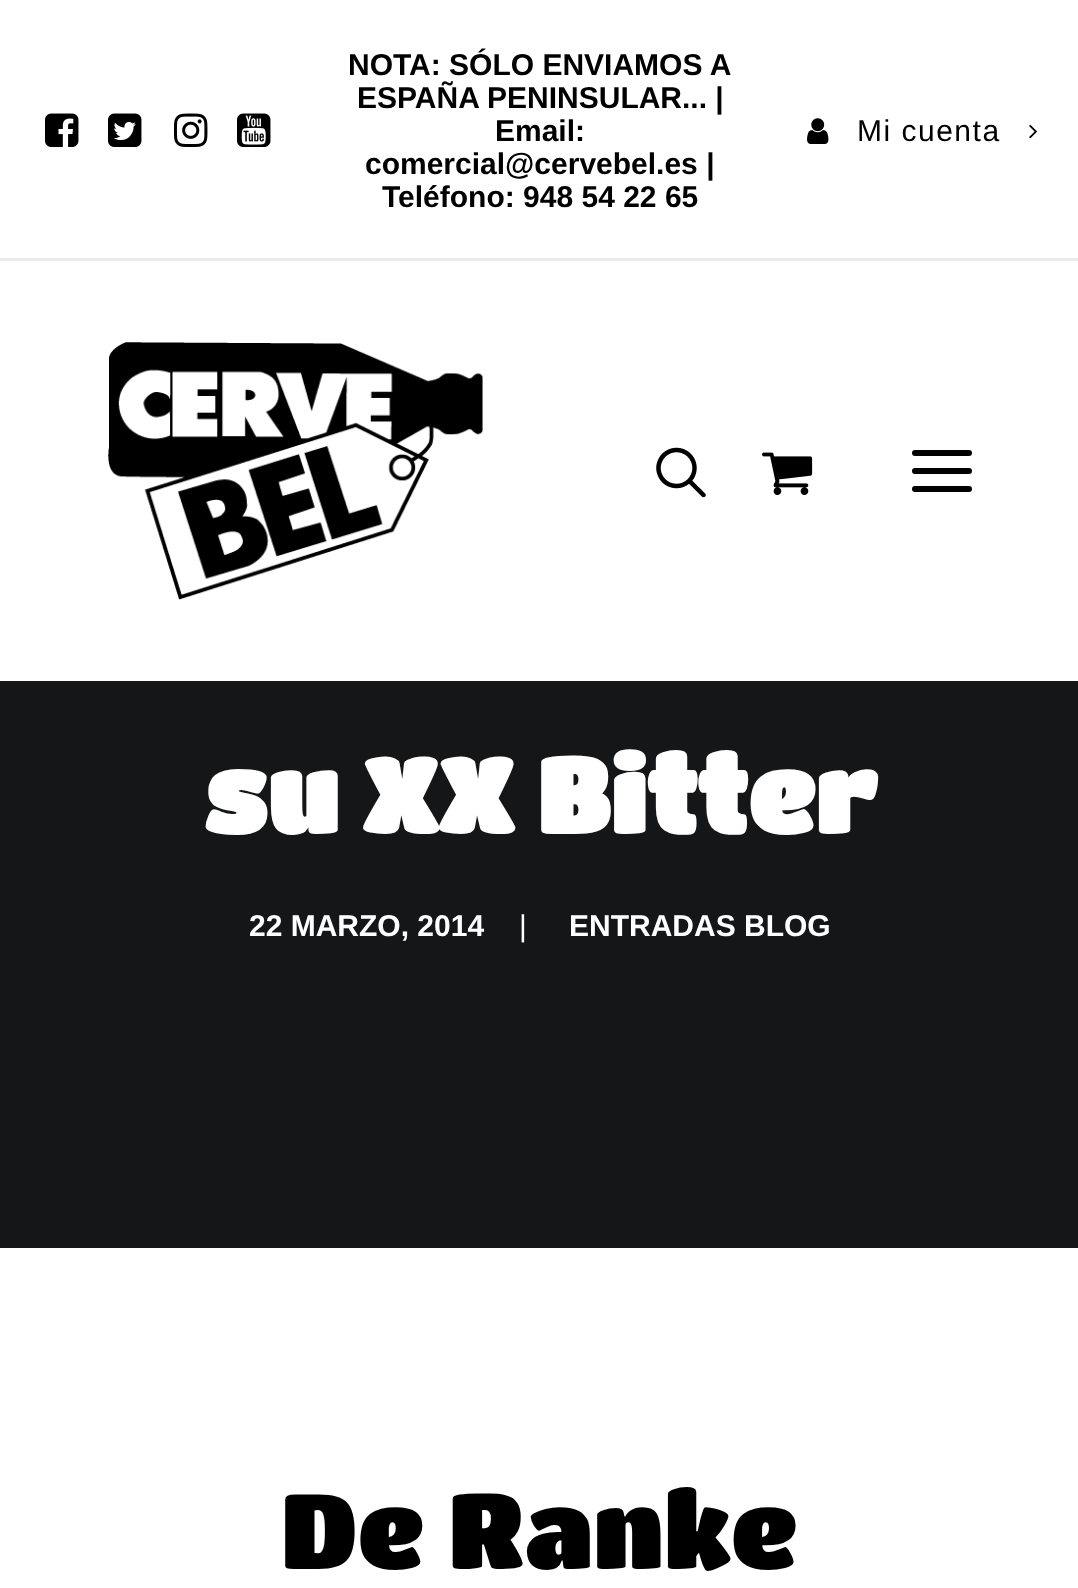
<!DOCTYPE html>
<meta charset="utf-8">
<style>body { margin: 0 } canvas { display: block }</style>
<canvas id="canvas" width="1078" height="1588"></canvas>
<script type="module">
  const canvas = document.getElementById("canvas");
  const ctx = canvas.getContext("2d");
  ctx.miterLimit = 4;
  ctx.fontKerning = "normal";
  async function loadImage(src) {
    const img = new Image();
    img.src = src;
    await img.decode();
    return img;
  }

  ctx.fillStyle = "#141618";
  ctx.fillRect(0, 0, 1078, 1588);
  ctx.fillStyle = "#ffffff";
  ctx.fillRect(0, 0, 1078, 258);
  ctx.drawImage(await loadImage("img1.png"), 45, 113, 34, 34);
  ctx.drawImage(await loadImage("img2.png"), 108, 113, 34, 34);
  ctx.drawImage(await loadImage("img3.png"), 174, 113, 34, 34);
  ctx.drawImage(await loadImage("img4.png"), 237, 113, 34, 34);
  ctx.font = "bold 30px Liberation Sans";
  ctx.fillStyle = "#000000";
  ctx.fillText("NOTA: SÓLO ENVIAMOS A", 348, 75);
  ctx.fillText("ESPAÑA PENINSULAR... |", 357, 108);
  ctx.fillText("Email:", 495, 141);
  ctx.fillText("comercial@cervebel.es |", 365, 174);
  ctx.fillText("Teléfono: 948 54 22 65", 382, 207);
  ctx.drawImage(await loadImage("img5.png"), 807, 118, 22, 26);
  ctx.letterSpacing = "1.5px";
  ctx.font = "30px Liberation Sans";
  ctx.fillText("Mi cuenta", 857, 141);
  ctx.drawImage(await loadImage("img6.png"), 1029, 124, 8, 15);
  ctx.fillStyle = "#eaeaea";
  ctx.fillRect(0, 258, 1078, 3);
  ctx.fillStyle = "#ffffff";
  ctx.fillRect(0, 261, 1078, 420);
  ctx.drawImage(await loadImage("img7.png"), 108, 342, 375, 258);
  ctx.drawImage(await loadImage("img8.png"), 656, 447, 50, 51);
  ctx.drawImage(await loadImage("img9.png"), 762, 452, 51, 43);
  ctx.fillStyle = "#000000";
  ctx.beginPath();
  ctx.roundRect(912, 468, 60, 6, 3);
  ctx.fill();
  ctx.beginPath();
  ctx.roundRect(912, 450, 60, 6, 3);
  ctx.fill();
  ctx.beginPath();
  ctx.roundRect(912, 486, 60, 6, 3);
  ctx.fill();
  ctx.letterSpacing = "0px";
  ctx.font = "bold 105px Titan One";
  ctx.fillStyle = "#ffffff";
  ctx.fillText("su XX Bitter", 203, 834);
  ctx.font = "bold 30px Liberation Sans";
  ctx.fillText("22 MARZO, 2014", 249, 936);
  ctx.font = "30px Liberation Sans";
  ctx.fillText("|", 519, 936);
  ctx.font = "bold 30px Liberation Sans";
  ctx.fillText("ENTRADAS BLOG", 569, 936);
  ctx.fillRect(0, 1248, 1078, 340);
  ctx.font = "105px Titan One";
  ctx.fillStyle = "#000000";
  ctx.fillText("De Ranke", 281, 1569);
</script>
